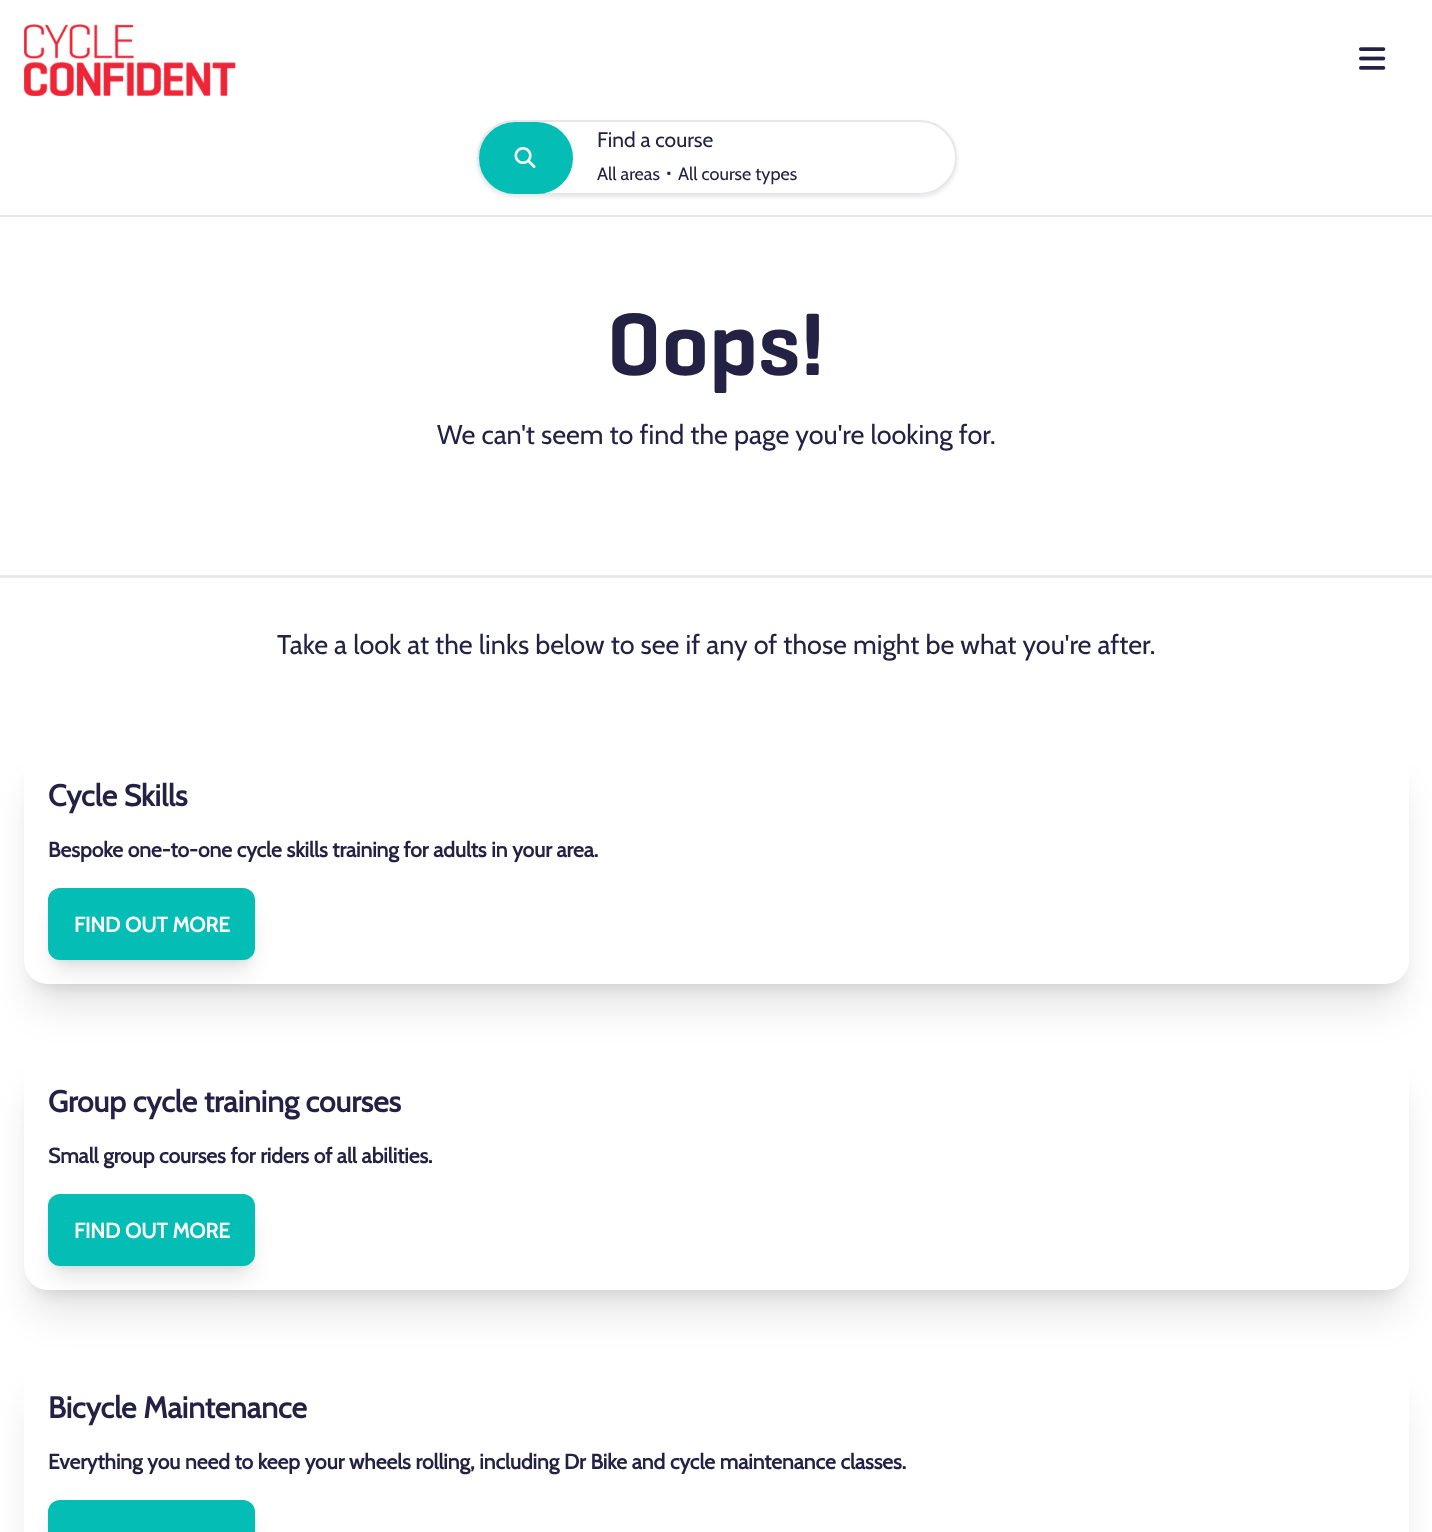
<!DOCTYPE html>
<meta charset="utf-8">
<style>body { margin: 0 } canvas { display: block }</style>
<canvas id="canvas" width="1432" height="1532"></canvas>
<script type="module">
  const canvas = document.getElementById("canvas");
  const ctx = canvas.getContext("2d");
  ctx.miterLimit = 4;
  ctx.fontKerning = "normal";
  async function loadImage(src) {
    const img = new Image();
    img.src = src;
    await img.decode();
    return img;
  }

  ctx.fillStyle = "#ffffff";
  ctx.fillRect(0, 0, 1432, 1532);
  ctx.fillStyle = "#e5e7eb";
  ctx.fillRect(0, 215, 1432, 2);
  ctx.drawImage(await loadImage("img1.png"), 24, 24, 212, 72);
  ctx.drawImage(await loadImage("img2.png"), 1359, 47, 27, 23);
  ctx.save();
  ctx.beginPath();
  ctx.moveTo(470, 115);
  ctx.lineTo(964, 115);
  ctx.lineTo(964, 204);
  ctx.lineTo(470, 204);
  ctx.closePath();
  ctx.moveTo(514.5, 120);
  ctx.lineTo(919.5, 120);
  ctx.bezierCurveTo(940, 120, 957, 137, 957, 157.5);
  ctx.bezierCurveTo(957, 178, 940, 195, 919.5, 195);
  ctx.lineTo(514.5, 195);
  ctx.bezierCurveTo(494, 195, 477, 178, 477, 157.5);
  ctx.bezierCurveTo(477, 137, 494, 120, 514.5, 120);
  ctx.closePath();
  ctx.clip("evenodd");
  ctx.fillStyle = "rgba(0, 0, 0, 0.1)";
  ctx.filter = "blur(2px)";
  ctx.beginPath();
  ctx.roundRect(477, 122, 480, 75, 37.5);
  ctx.fill();
  ctx.filter = "none";
  ctx.restore();
  ctx.beginPath();
  ctx.roundRect(478, 121, 478, 73, 36.5);
  ctx.strokeStyle = "#e5e7eb";
  ctx.lineWidth = 2;
  ctx.stroke();
  ctx.fillStyle = "#04beb5";
  ctx.beginPath();
  ctx.roundRect(480, 123, 92, 70, 35);
  ctx.fill();
  ctx.strokeStyle = "#04beb5";
  ctx.stroke();
  ctx.drawImage(await loadImage("img3.png"), 514, 147, 22, 21);
  ctx.font = "21px Cabin";
  ctx.fillStyle = "#232245";
  ctx.fillText("Find a course", 597, 147);
  ctx.font = "18px Cabin";
  ctx.fillText("All areas", 597, 180);
  ctx.font = "24px Cabin";
  ctx.fillText("·", 666, 180);
  ctx.font = "18px Cabin";
  ctx.fillText("All course types", 678, 180);
  ctx.font = "600 90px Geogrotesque";
  ctx.fillText("Oops!", 607, 375);
  ctx.font = "27px Cabin";
  ctx.fillText("We can't seem to find the page you're looking for.", 437, 444);
  ctx.fillStyle = "#e9eaeb";
  ctx.fillRect(0, 575, 1432, 3);
  ctx.fillStyle = "#232245";
  ctx.fillText("Take a look at the links below to see if any of those might be what you're after.", 277, 654);
  ctx.fillStyle = "rgba(0, 0, 0, 0.1)";
  ctx.filter = "blur(7.5px)";
  ctx.beginPath();
  ctx.roundRect(33, 771, 1367, 216, 15);
  ctx.fill();
  ctx.filter = "none";
  ctx.filter = "blur(19px)";
  ctx.beginPath();
  ctx.roundRect(32, 788, 1369, 219, 17);
  ctx.fill();
  ctx.filter = "none";
  ctx.fillStyle = "#ffffff";
  ctx.beginPath();
  ctx.roundRect(24, 750, 1385, 234, 24);
  ctx.fill();
  ctx.font = "bold 30px Cabin";
  ctx.fillStyle = "#232245";
  ctx.fillText("Cycle Skills", 48, 806);
  ctx.font = "bold 21px Cabin";
  ctx.fillText("Bespoke one-to-one cycle skills training for adults in your area.", 48, 857);
  ctx.fillStyle = "rgba(0, 0, 0, 0.1)";
  ctx.filter = "blur(4.5px)";
  ctx.beginPath();
  ctx.roundRect(54, 900, 195, 60, 6);
  ctx.fill();
  ctx.filter = "none";
  ctx.filter = "blur(11px)";
  ctx.beginPath();
  ctx.roundRect(53, 908, 198, 63, 8);
  ctx.fill();
  ctx.filter = "none";
  ctx.fillStyle = "#04beb5";
  ctx.beginPath();
  ctx.roundRect(49, 889, 205, 70, 11);
  ctx.fill();
  ctx.stroke();
  ctx.fillStyle = "#ffffff";
  ctx.fillText("FIND OUT MORE", 74, 932);
  ctx.fillStyle = "rgba(0, 0, 0, 0.1)";
  ctx.filter = "blur(7.5px)";
  ctx.beginPath();
  ctx.roundRect(33, 1077, 1367, 216, 15);
  ctx.fill();
  ctx.filter = "none";
  ctx.filter = "blur(19px)";
  ctx.beginPath();
  ctx.roundRect(32, 1094, 1369, 219, 17);
  ctx.fill();
  ctx.filter = "none";
  ctx.fillStyle = "#ffffff";
  ctx.beginPath();
  ctx.roundRect(24, 1056, 1385, 234, 24);
  ctx.fill();
  ctx.font = "bold 30px Cabin";
  ctx.fillStyle = "#232245";
  ctx.fillText("Group cycle training courses", 48, 1112);
  ctx.font = "bold 21px Cabin";
  ctx.fillText("Small group courses for riders of all abilities.", 48, 1163);
  ctx.fillStyle = "rgba(0, 0, 0, 0.1)";
  ctx.filter = "blur(4.5px)";
  ctx.beginPath();
  ctx.roundRect(54, 1206, 195, 60, 6);
  ctx.fill();
  ctx.filter = "none";
  ctx.filter = "blur(11px)";
  ctx.beginPath();
  ctx.roundRect(53, 1214, 198, 63, 8);
  ctx.fill();
  ctx.filter = "none";
  ctx.fillStyle = "#04beb5";
  ctx.beginPath();
  ctx.roundRect(49, 1195, 205, 70, 11);
  ctx.fill();
  ctx.stroke();
  ctx.fillStyle = "#ffffff";
  ctx.fillText("FIND OUT MORE", 74, 1238);
  ctx.fillStyle = "rgba(0, 0, 0, 0.1)";
  ctx.filter = "blur(19px)";
  ctx.beginPath();
  ctx.roundRect(32, 1400, 1369, 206, 17);
  ctx.fill();
  ctx.filter = "none";
  ctx.fillStyle = "#ffffff";
  ctx.beginPath();
  ctx.roundRect(24, 1362, 1385, 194, 24);
  ctx.fill();
  ctx.font = "bold 30px Cabin";
  ctx.fillStyle = "#232245";
  ctx.fillText("Bicycle Maintenance", 48, 1418);
  ctx.font = "bold 21px Cabin";
  ctx.fillText("Everything you need to keep your wheels rolling, including Dr Bike and cycle maintenance classes.", 48, 1469);
  ctx.fillStyle = "rgba(0, 0, 0, 0.1)";
  ctx.filter = "blur(11px)";
  ctx.beginPath();
  ctx.roundRect(53, 1520, 198, 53, 8);
  ctx.fill();
  ctx.filter = "none";
  ctx.fillStyle = "#04beb5";
  ctx.beginPath();
  ctx.roundRect(49, 1501, 205, 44, 11);
  ctx.fill();
  ctx.stroke();
</script>
